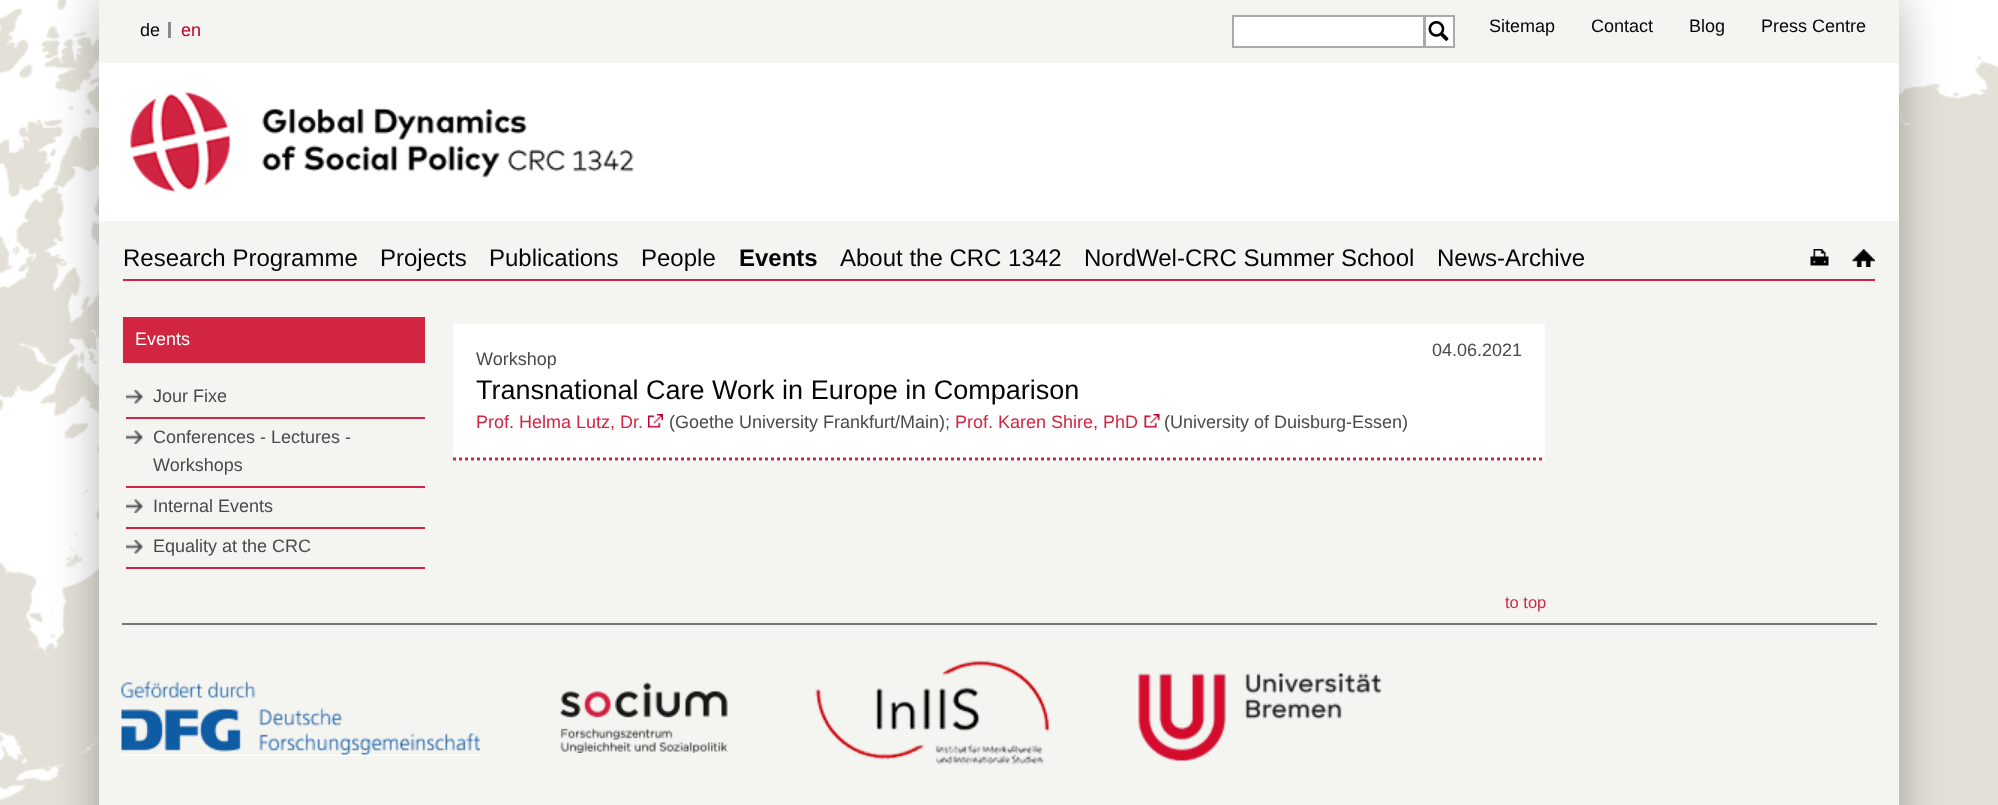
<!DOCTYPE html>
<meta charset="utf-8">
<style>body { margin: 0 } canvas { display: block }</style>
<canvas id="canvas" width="1998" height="805"></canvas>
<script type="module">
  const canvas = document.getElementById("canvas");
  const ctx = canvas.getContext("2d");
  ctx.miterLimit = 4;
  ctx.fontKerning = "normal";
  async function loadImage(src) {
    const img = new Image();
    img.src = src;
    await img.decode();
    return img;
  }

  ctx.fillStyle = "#ffffff";
  ctx.fillRect(0, 0, 1998, 805);
  ctx.drawImage(await loadImage("img1.png"), 0, 0, 1998, 805);
  ctx.fillStyle = "rgba(0, 0, 0, 0.3)";
  ctx.filter = "blur(22.5px)";
  ctx.beginPath();
  ctx.rect(99, 0, 1800, 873);
  ctx.fill();
  ctx.filter = "none";
  ctx.fillStyle = "#f4f4f1";
  ctx.fillRect(99, 0, 1800, 805);
  ctx.font = "18px Liberation Sans";
  ctx.fillStyle = "#050505";
  ctx.fillText("de", 140, 36);
  ctx.fillStyle = "#8a8a8a";
  ctx.fillRect(168, 22, 3, 16);
  ctx.fillStyle = "#ba002c";
  ctx.fillText("en", 181, 36);
  ctx.fillStyle = "#ffffff";
  ctx.beginPath();
  ctx.rect(1233, 16, 191, 31);
  ctx.fill();
  ctx.strokeStyle = "#aaaaaa";
  ctx.lineWidth = 2;
  ctx.stroke();
  ctx.fillRect(1426, 17, 27, 29);
  ctx.drawImage(await loadImage("img2.png"), 1428, 21, 21, 20);
  ctx.strokeRect(1425, 16, 29, 31);
  ctx.fillStyle = "#050505";
  ctx.fillText("Sitemap", 1489, 32);
  ctx.fillText("Contact", 1591, 32);
  ctx.fillText("Blog", 1689, 32);
  ctx.fillText("Press Centre", 1761, 32);
  ctx.fillStyle = "#ffffff";
  ctx.fillRect(99, 63, 1800, 158);
  ctx.drawImage(await loadImage("img3.png"), 130, 91, 504, 102);
  ctx.fillStyle = "#d12541";
  ctx.fillRect(123, 279, 1752, 2);
  ctx.font = "24px Liberation Sans";
  ctx.fillStyle = "#050505";
  ctx.fillText("Research Programme", 123, 266);
  ctx.fillText("Projects", 380, 266);
  ctx.fillText("Publications", 489, 266);
  ctx.fillText("People", 641, 266);
  ctx.font = "bold 24px Liberation Sans";
  ctx.fillText("Events", 739, 266);
  ctx.font = "24px Liberation Sans";
  ctx.fillText("About the CRC 1342", 840, 266);
  ctx.fillText("NordWel-CRC Summer School", 1084, 266);
  ctx.fillText("News-Archive", 1437, 266);
  ctx.drawImage(await loadImage("img4.png"), 1810, 249, 19, 17);
  ctx.drawImage(await loadImage("img5.png"), 1852, 249, 23, 18);
  ctx.fillStyle = "#d12541";
  ctx.fillRect(123, 317, 302, 46);
  ctx.font = "18px Liberation Sans";
  ctx.fillStyle = "#ffffff";
  ctx.fillText("Events", 135, 345);
  ctx.fillStyle = "#d12541";
  ctx.fillRect(126, 417, 299, 2);
  ctx.drawImage(await loadImage("img6.png"), 126, 390, 17, 14);
  ctx.fillStyle = "#4a4a4a";
  ctx.fillText("Jour Fixe", 153, 402);
  ctx.fillStyle = "#d12541";
  ctx.fillRect(126, 486, 299, 2);
  ctx.drawImage(await loadImage("img7.png"), 126, 430, 17, 14);
  ctx.fillStyle = "#4a4a4a";
  ctx.fillText("Conferences - Lectures -", 153, 443);
  ctx.fillText("Workshops", 153, 471);
  ctx.fillStyle = "#d12541";
  ctx.fillRect(126, 527, 299, 2);
  ctx.drawImage(await loadImage("img7.png"), 126, 499, 17, 14);
  ctx.fillStyle = "#4a4a4a";
  ctx.fillText("Internal Events", 153, 512);
  ctx.fillStyle = "#d12541";
  ctx.fillRect(126, 567, 299, 2);
  ctx.drawImage(await loadImage("img6.png"), 126, 540, 17, 14);
  ctx.fillStyle = "#4a4a4a";
  ctx.fillText("Equality at the CRC", 153, 552);
  ctx.fillStyle = "#ffffff";
  ctx.fillRect(453, 324, 1092, 137);
  ctx.beginPath();
  ctx.moveTo(453, 459);
  ctx.lineTo(1545, 459);
  ctx.strokeStyle = "#d12541";
  ctx.lineWidth = 3;
  ctx.setLineDash([3, 3]);
  ctx.stroke();
  ctx.fillStyle = "#4a4a4a";
  ctx.fillText("Workshop", 476, 365);
  ctx.fillText("04.06.2021", 1432, 356);
  ctx.font = "27px Liberation Sans";
  ctx.fillStyle = "#050505";
  ctx.fillText("Transnational Care Work in Europe in Comparison", 476, 399);
  ctx.font = "18px Liberation Sans";
  ctx.fillStyle = "#d12541";
  ctx.fillText("Prof. Helma Lutz, Dr.", 476, 428);
  ctx.drawImage(await loadImage("img8.png"), 648, 414, 15, 14);
  ctx.fillStyle = "#4a4a4a";
  ctx.fillText("(Goethe University Frankfurt/Main);", 669, 428);
  ctx.fillStyle = "#d12541";
  ctx.fillText("Prof. Karen Shire, PhD", 955, 428);
  ctx.drawImage(await loadImage("img9.png"), 1144, 414, 16, 14);
  ctx.fillStyle = "#4a4a4a";
  ctx.fillText("(University of Duisburg-Essen)", 1164, 428);
  ctx.font = "16.5px Liberation Sans";
  ctx.fillStyle = "#d12541";
  ctx.fillText("to top", 1505, 608);
  ctx.fillStyle = "#777777";
  ctx.fillRect(122, 623, 1755, 2);
  ctx.drawImage(await loadImage("img10.png"), 121, 680, 359, 76);
  ctx.drawImage(await loadImage("img11.png"), 559, 682, 169, 71);
  ctx.drawImage(await loadImage("img12.png"), 814, 660, 237, 105);
  ctx.drawImage(await loadImage("img13.png"), 1138, 673, 244, 88);
</script>
